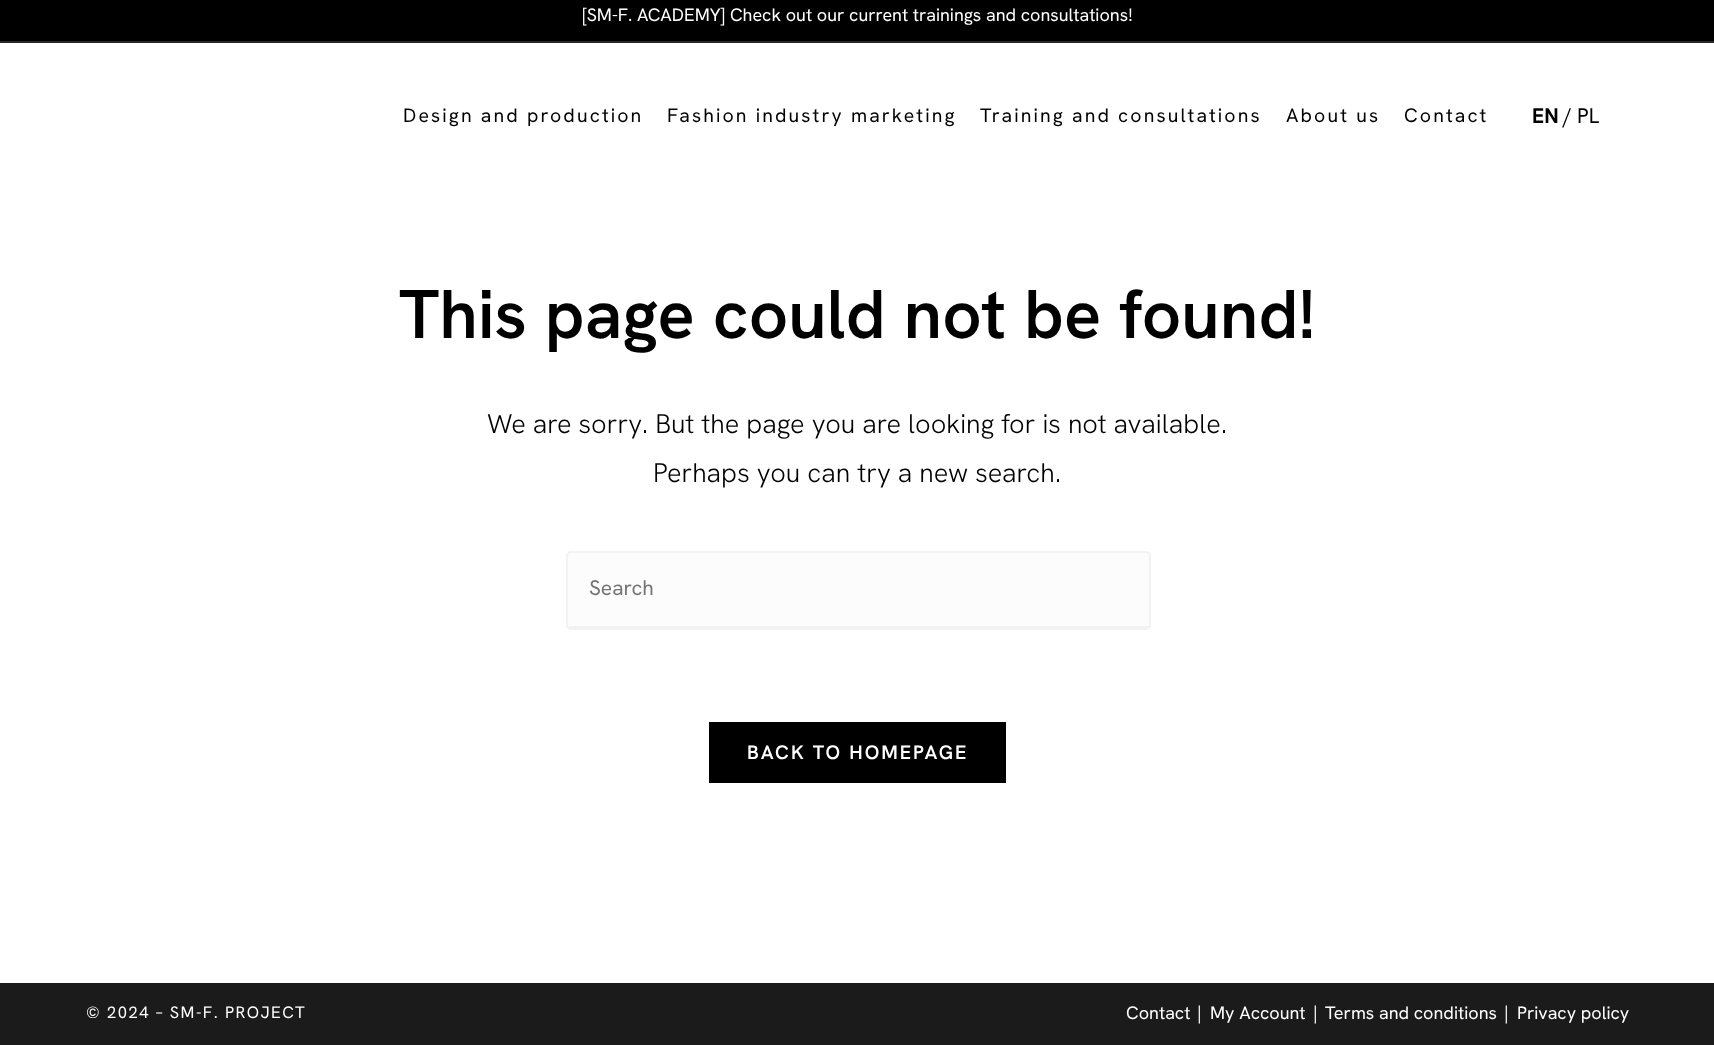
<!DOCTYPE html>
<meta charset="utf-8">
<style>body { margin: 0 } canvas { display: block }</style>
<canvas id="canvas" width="1714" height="1045"></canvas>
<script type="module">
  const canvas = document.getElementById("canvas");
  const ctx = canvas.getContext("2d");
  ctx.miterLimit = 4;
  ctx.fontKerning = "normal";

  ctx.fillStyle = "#ffffff";
  ctx.fillRect(0, 0, 1714, 1045);
  ctx.fillStyle = "#000000";
  ctx.fillRect(0, 0, 1714, 41);
  ctx.fillStyle = "#292929";
  ctx.fillRect(0, 41, 1714, 2);
  ctx.font = "18px Hanken Grotesk";
  ctx.fillStyle = "#ffffff";
  ctx.fillText("[SM-F. ACADEMY] Check out our current trainings and consultations!", 582, 21);
  ctx.letterSpacing = "2.1px";
  ctx.font = "19.5px Hanken Grotesk";
  ctx.fillStyle = "#000000";
  ctx.fillText("Design and production", 403, 122);
  ctx.fillText("Fashion industry marketing", 667, 122);
  ctx.fillText("Training and consultations", 980, 122);
  ctx.fillText("About us", 1286, 122);
  ctx.fillText("Contact", 1404, 122);
  ctx.letterSpacing = "0px";
  ctx.font = "bold 21px Hanken Grotesk";
  ctx.fillText("EN", 1532, 123);
  ctx.font = "21px Hanken Grotesk";
  ctx.fillText("/", 1563, 123);
  ctx.fillText("PL", 1577, 123);
  ctx.font = "600 69px Hanken Grotesk";
  ctx.fillText("This page could not be found!", 399, 338);
  ctx.font = "300 27px Hanken Grotesk";
  ctx.fillText("We are sorry. But the page you are looking for is not available.", 487, 433);
  ctx.fillText("Perhaps you can try a new search.", 653, 482);
  ctx.fillStyle = "#fcfcfc";
  ctx.beginPath();
  ctx.moveTo(570, 552);
  ctx.lineTo(1146, 552);
  ctx.bezierCurveTo(1148, 552, 1149, 553, 1149, 555);
  ctx.lineTo(1149, 626);
  ctx.lineTo(567, 626);
  ctx.lineTo(567, 555);
  ctx.bezierCurveTo(567, 553, 568, 552, 570, 552);
  ctx.closePath();
  ctx.fill();
  ctx.beginPath();
  ctx.roundRect(567, 552, 583, 77, 4);
  ctx.strokeStyle = "#f2f2f2";
  ctx.lineWidth = 2;
  ctx.stroke();
  ctx.fillStyle = "#f2f2f2";
  ctx.fillRect(569, 626, 580, 2);
  ctx.font = "21px Hanken Grotesk";
  ctx.fillStyle = "#757575";
  ctx.fillText("Search", 589, 595);
  ctx.fillStyle = "#000000";
  ctx.fillRect(709, 722, 297, 61);
  ctx.letterSpacing = "2px";
  ctx.font = "600 19.5px Hanken Grotesk";
  ctx.fillStyle = "#ffffff";
  ctx.fillText("BACK TO HOMEPAGE", 747, 759);
  ctx.fillStyle = "#1b1b1b";
  ctx.fillRect(0, 983, 1714, 62);
  ctx.letterSpacing = "1.5px";
  ctx.font = "16.5px Hanken Grotesk";
  ctx.fillStyle = "#ffffff";
  ctx.fillText("© 2024 – SM-F. PROJECT", 86, 1018);
  ctx.letterSpacing = "0px";
  ctx.font = "18px Hanken Grotesk";
  ctx.fillText("Contact", 1126, 1019);
  ctx.fillText("|", 1197, 1019);
  ctx.fillText("My Account", 1210, 1019);
  ctx.fillText("|", 1313, 1019);
  ctx.fillText("Terms and conditions", 1325, 1019);
  ctx.fillText("|", 1504, 1019);
  ctx.fillText("Privacy policy", 1517, 1019);
</script>
